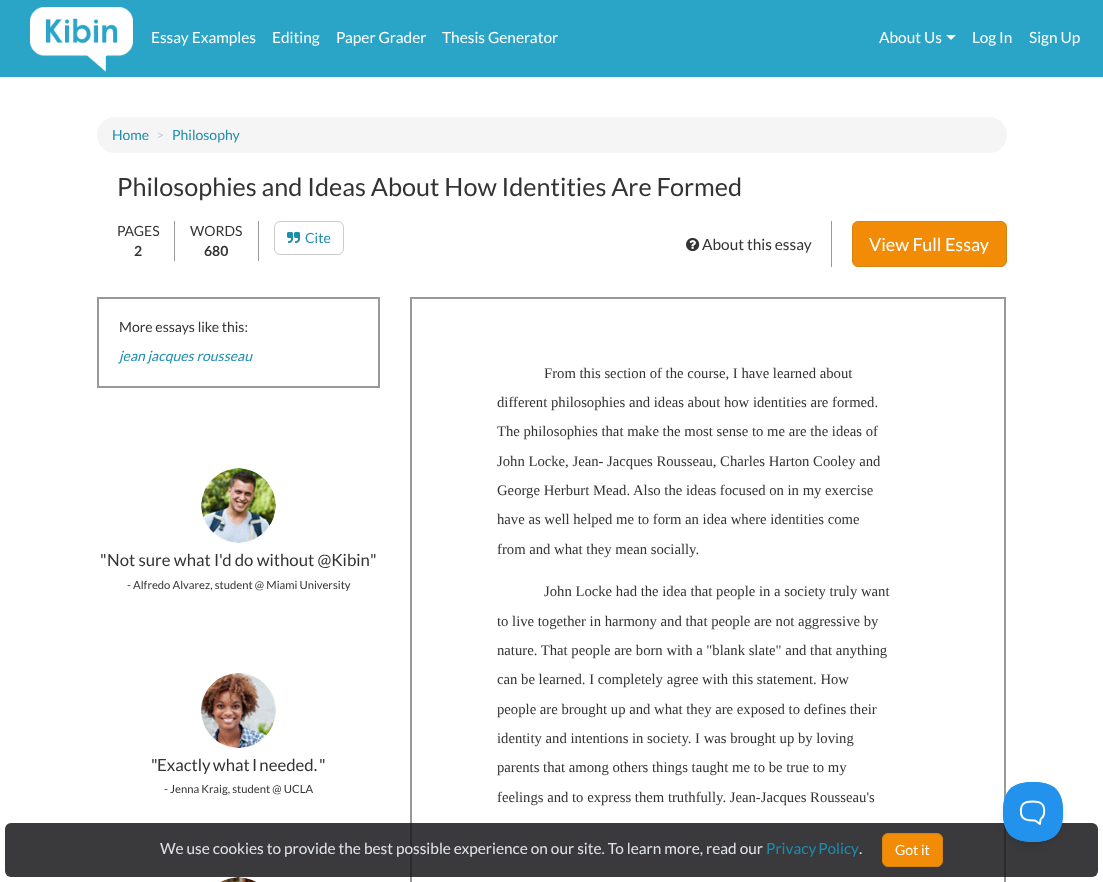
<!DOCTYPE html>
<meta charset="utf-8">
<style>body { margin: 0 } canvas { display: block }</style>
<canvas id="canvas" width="1103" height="882"></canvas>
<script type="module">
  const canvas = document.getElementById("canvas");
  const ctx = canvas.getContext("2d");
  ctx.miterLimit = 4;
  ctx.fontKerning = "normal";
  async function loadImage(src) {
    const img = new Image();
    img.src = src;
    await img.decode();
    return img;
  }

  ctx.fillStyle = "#ffffff";
  ctx.fillRect(0, 0, 1103, 882);
  ctx.fillStyle = "#2aa5c8";
  ctx.fillRect(0, 0, 1103, 77);
  ctx.drawImage(await loadImage("img1.png"), 30, 7, 103, 65);
  ctx.font = "15.4px Lato";
  ctx.fillStyle = "#ffffff";
  ctx.fillText("Essay Examples", 151, 43);
  ctx.fillText("Editing", 272, 43);
  ctx.fillText("Paper Grader", 336, 43);
  ctx.fillText("Thesis Generator", 442, 43);
  ctx.fillText("About Us", 879, 43);
  ctx.beginPath();
  ctx.moveTo(946, 35);
  ctx.lineTo(956, 35);
  ctx.lineTo(951, 40);
  ctx.closePath();
  ctx.fill();
  ctx.fillText("Log In", 972, 43);
  ctx.fillText("Sign Up", 1029, 43);
  ctx.fillStyle = "#f5f5f5";
  ctx.beginPath();
  ctx.roundRect(97, 117, 910, 36, 18);
  ctx.fill();
  ctx.font = "14px Lato";
  ctx.fillStyle = "#1e8dac";
  ctx.fillText("Home", 112, 140);
  ctx.fillStyle = "#cccccc";
  ctx.fillText(">", 156, 140);
  ctx.fillStyle = "#1e8dac";
  ctx.fillText("Philosophy", 172, 140);
  ctx.font = "25.2px Lato";
  ctx.fillStyle = "#333333";
  ctx.fillText("Philosophies and Ideas About How Identities Are Formed", 117, 196);
  ctx.fillStyle = "#999999";
  ctx.fillRect(174, 221, 1, 40);
  ctx.font = "14px Lato";
  ctx.fillStyle = "#333333";
  ctx.fillText("PAGES", 117, 236);
  ctx.font = "bold 14px Lato";
  ctx.fillText("2", 134, 256);
  ctx.fillStyle = "#999999";
  ctx.fillRect(258, 221, 1, 40);
  ctx.font = "14px Lato";
  ctx.fillStyle = "#333333";
  ctx.fillText("WORDS", 190, 236);
  ctx.font = "bold 14px Lato";
  ctx.fillText("680", 204, 256);
  ctx.beginPath();
  ctx.roundRect(274.5, 221.5, 69, 33, 5.5);
  ctx.strokeStyle = "#cccccc";
  ctx.stroke();
  ctx.drawImage(await loadImage("img2.png"), 287, 232, 13, 11);
  ctx.font = "14px Lato";
  ctx.fillStyle = "#1e8dac";
  ctx.fillText("Cite", 305, 243);
  ctx.drawImage(await loadImage("img3.png"), 686, 237, 14, 15);
  ctx.font = "15.4px Lato";
  ctx.fillStyle = "#333333";
  ctx.fillText("About this essay", 702, 250);
  ctx.fillStyle = "#999999";
  ctx.fillRect(831, 221, 1, 46);
  ctx.fillStyle = "#f28c06";
  ctx.beginPath();
  ctx.roundRect(852.5, 221.5, 154, 45, 5.5);
  ctx.fill();
  ctx.strokeStyle = "#d58512";
  ctx.stroke();
  ctx.font = "18px Lato";
  ctx.fillStyle = "#ffffff";
  ctx.fillText("View Full Essay", 869, 251);
  ctx.strokeStyle = "#999999";
  ctx.lineWidth = 2;
  ctx.strokeRect(98, 298, 281, 89);
  ctx.font = "14px Lato";
  ctx.fillStyle = "#333333";
  ctx.fillText("More essays like this:", 119, 332);
  ctx.font = "italic 14px Lato";
  ctx.fillStyle = "#1e8dac";
  ctx.fillText("jean jacques rousseau", 119, 361);
  ctx.drawImage(await loadImage("img4.png"), 201, 468, 75, 75);
  ctx.font = "16.75px Lato";
  ctx.fillStyle = "#333333";
  ctx.fillText("\"", 100, 566);
  ctx.fillText("Not sure what I'd do without @Kibin", 107, 566);
  ctx.fillText("\"", 370, 566);
  ctx.font = "11.25px Lato";
  ctx.fillText("- Alfredo Alvarez, student @ Miami University", 127, 589);
  ctx.drawImage(await loadImage("img5.png"), 201, 673, 75, 75);
  ctx.font = "16.75px Lato";
  ctx.fillText("\"", 151, 771);
  ctx.wordSpacing = "-1px";
  ctx.fillText("Exactly what I needed.", 157, 771);
  ctx.wordSpacing = "0px";
  ctx.fillText("\"", 319, 771);
  ctx.font = "11.25px Lato";
  ctx.fillText("- Jenna Kraig, student @ UCLA", 164, 793);
  ctx.drawImage(await loadImage("img6.png"), 220, 877, 36, 5);
  ctx.strokeRect(411, 298, 594, 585);
  ctx.font = "14.7px Liberation Serif";
  ctx.fillText("From this section of the course, I have learned about", 544, 378);
  ctx.fillText("different philosophies and ideas about how identities are formed.", 497, 407);
  ctx.fillText("The philosophies that make the most sense to me are the ideas of", 497, 436);
  ctx.fillText("John Locke, Jean- Jacques Rousseau, Charles Harton Cooley and", 497, 466);
  ctx.fillText("George Herburt Mead. Also the ideas focused on in my exercise", 497, 495);
  ctx.fillText("have as well helped me to form an idea where identities come", 497, 524);
  ctx.fillText("from and what they mean socially.", 497, 554);
  ctx.fillText("John Locke had the idea that people in a society truly want", 544, 596);
  ctx.fillText("to live together in harmony and that people are not aggressive by", 497, 626);
  ctx.fillText("nature. That people are born with a \"blank slate\" and that anything", 497, 655);
  ctx.fillText("can be learned. I completely agree with this statement. How", 497, 684);
  ctx.fillText("people are brought up and what they are exposed to defines their", 497, 714);
  ctx.fillText("identity and intentions in society. I was brought up by loving", 497, 743);
  ctx.fillText("parents that among others things taught me to be true to my", 497, 772);
  ctx.fillText("feelings and to express them truthfully. Jean-Jacques Rousseau's", 497, 802);
  ctx.fillStyle = "rgba(23, 24, 27, 0.85)";
  ctx.beginPath();
  ctx.roundRect(5, 823, 1093, 54, 6);
  ctx.fill();
  ctx.font = "15.4px Lato";
  ctx.fillStyle = "#e1e5ea";
  ctx.fillText("We use cookies to provide the best possible experience on our site. To learn more, read our", 160, 854);
  ctx.wordSpacing = "-1px";
  ctx.fillStyle = "#1e8dac";
  ctx.fillText("Privacy Policy", 766, 854);
  ctx.wordSpacing = "0px";
  ctx.fillStyle = "#e1e5ea";
  ctx.fillText(".", 859, 854);
  ctx.fillStyle = "#f28c06";
  ctx.beginPath();
  ctx.roundRect(882.5, 833.5, 60, 33, 5.5);
  ctx.fill();
  ctx.strokeStyle = "#d58512";
  ctx.lineWidth = 1;
  ctx.stroke();
  ctx.font = "14px Lato";
  ctx.fillStyle = "#ffffff";
  ctx.fillText("Got it", 895, 855);
  ctx.fillStyle = "rgba(0, 0, 0, 0.1)";
  ctx.filter = "blur(3.5px)";
  ctx.beginPath();
  ctx.roundRect(1003, 786, 60, 60, 30);
  ctx.fill();
  ctx.filter = "none";
  ctx.drawImage(await loadImage("img7.png"), 1003, 782, 60, 60);
</script>
